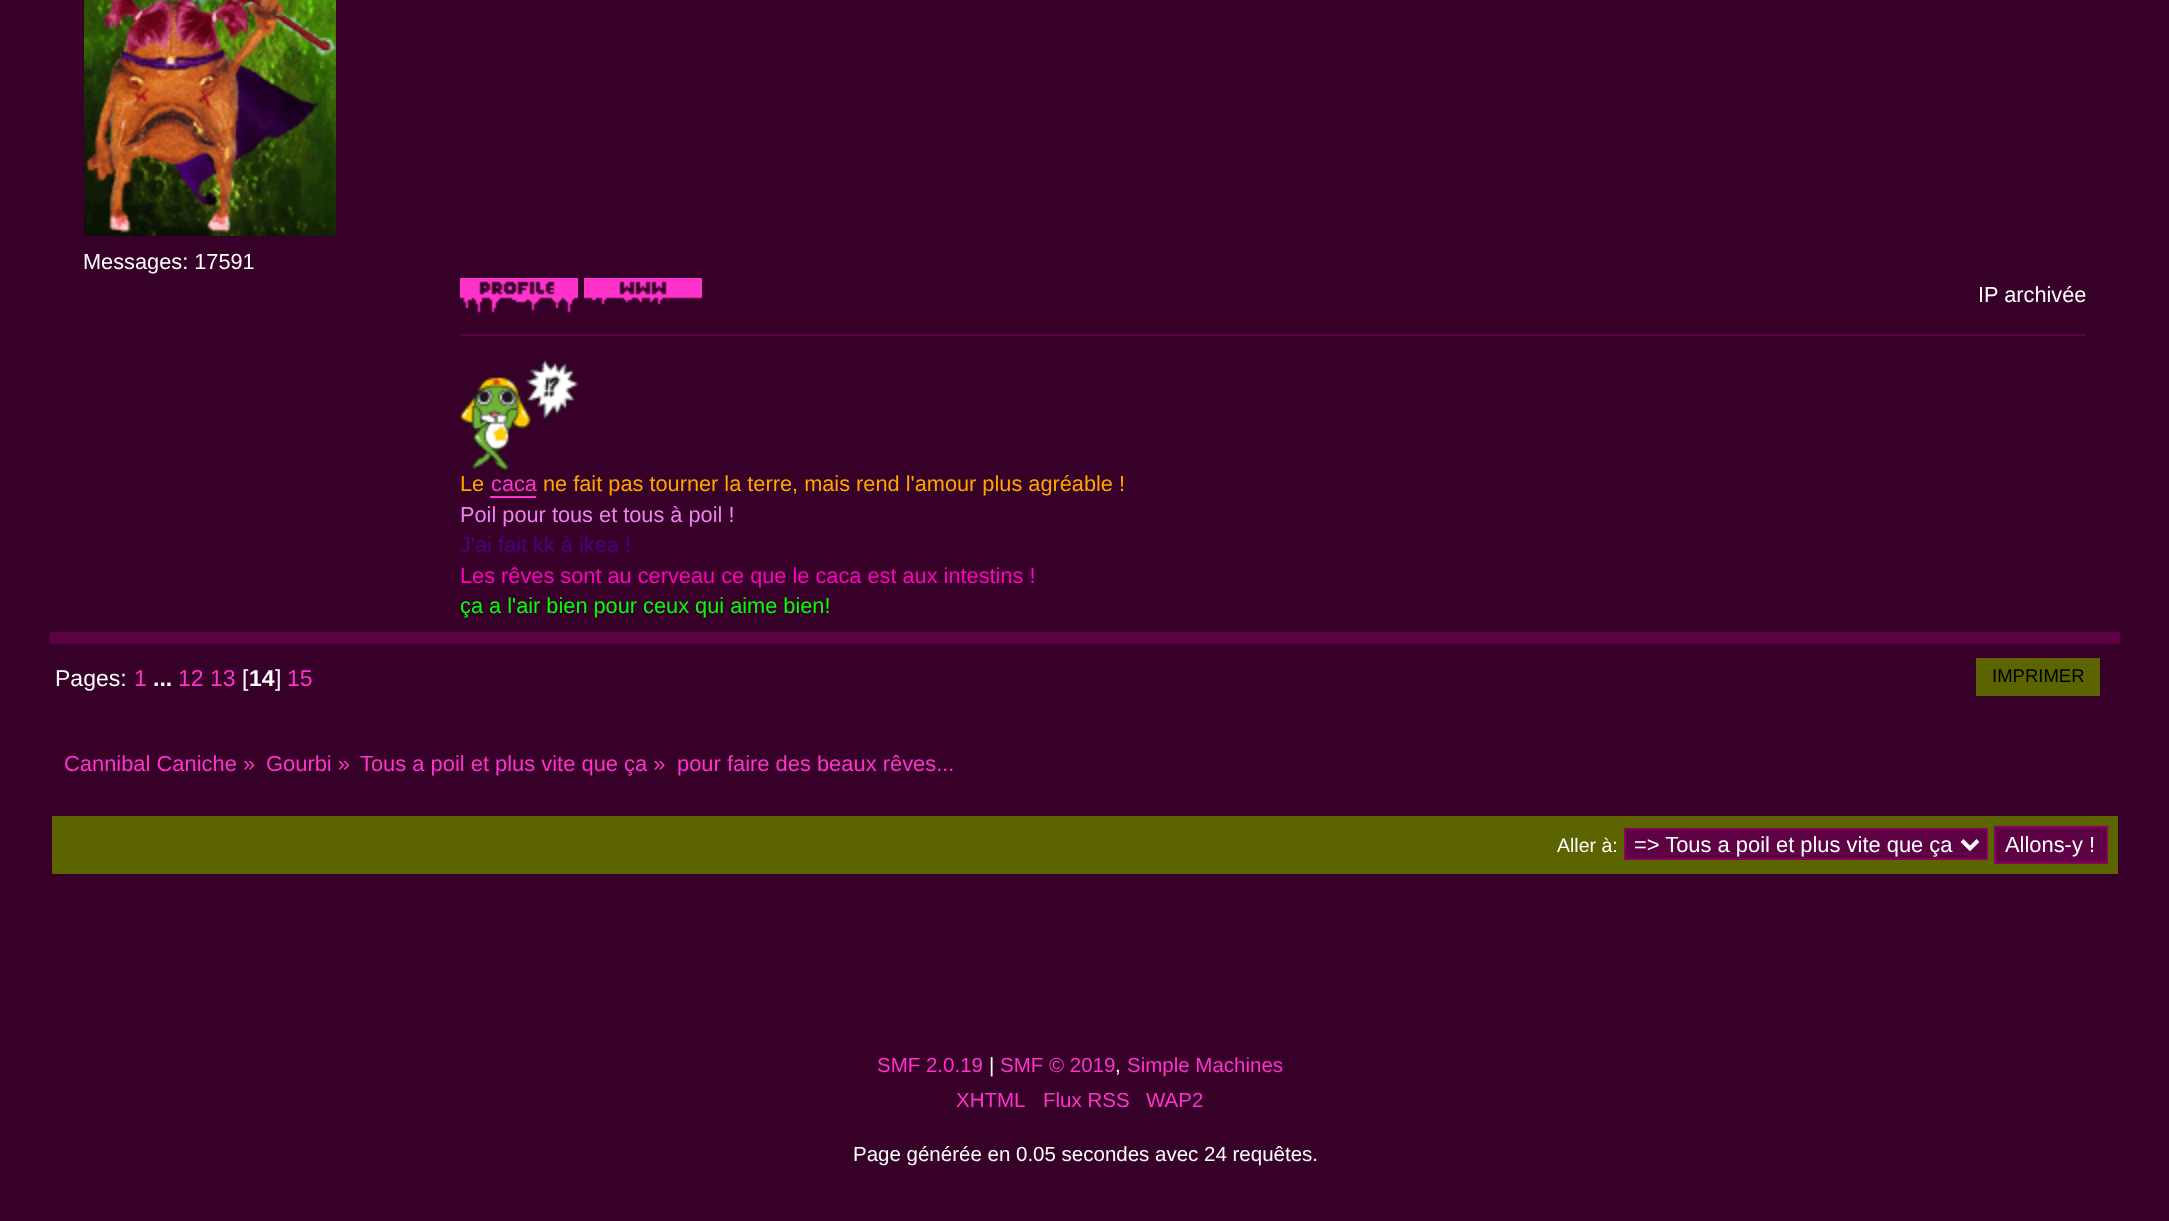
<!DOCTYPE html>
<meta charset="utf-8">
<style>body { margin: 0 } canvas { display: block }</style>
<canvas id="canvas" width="2169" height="1221"></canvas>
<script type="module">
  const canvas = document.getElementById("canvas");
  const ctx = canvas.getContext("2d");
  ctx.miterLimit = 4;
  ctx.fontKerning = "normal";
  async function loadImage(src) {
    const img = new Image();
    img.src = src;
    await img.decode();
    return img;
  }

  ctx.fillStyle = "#370028";
  ctx.fillRect(0, 0, 2169, 1221);
  ctx.drawImage(await loadImage("img1.png"), 84, 0, 252, 236);
  ctx.font = "21.75px Liberation Sans";
  ctx.fillStyle = "#ffffff";
  ctx.fillText("Messages: 17591", 83, 269);
  ctx.drawImage(await loadImage("img2.png"), 460, 278, 118, 35);
  ctx.drawImage(await loadImage("img3.png"), 584, 278, 118, 27);
  ctx.fillText("IP archivée", 1978, 302);
  ctx.fillStyle = "#5e0044";
  ctx.fillRect(460, 334, 1626, 2);
  ctx.drawImage(await loadImage("img4.png"), 460, 359, 119, 111);
  ctx.fillStyle = "#ffa500";
  ctx.fillText("Le", 460, 491);
  ctx.fillStyle = "#ff33cc";
  ctx.fillText("caca", 491, 491);
  ctx.fillRect(490, 496, 46, 2);
  ctx.fillStyle = "#ffa500";
  ctx.fillText("ne fait pas tourner la terre, mais rend l'amour plus agréable !", 543, 491);
  ctx.fillStyle = "#ee82ee";
  ctx.fillText("Poil pour tous et tous à poil !", 460, 522);
  ctx.fillStyle = "#4b0082";
  ctx.fillText("J'ai fait kk à ikea !", 460, 552);
  ctx.fillStyle = "#ff00bf";
  ctx.fillText("Les rêves sont au cerveau ce que le caca est aux intestins !", 460, 583);
  ctx.fillStyle = "#00ff00";
  ctx.fillText("ça a l'air bien pour ceux qui aime bien!", 460, 613);
  ctx.fillStyle = "#5e0044";
  ctx.fillRect(50, 632, 2070, 12);
  ctx.font = "23px Liberation Sans";
  ctx.fillStyle = "#ffffff";
  ctx.fillText("Pages:", 55, 686);
  ctx.fillStyle = "#ff33cc";
  ctx.fillText("1", 134, 686);
  ctx.font = "bold 23px Liberation Sans";
  ctx.fillStyle = "#ffffff";
  ctx.fillText("...", 153, 686);
  ctx.font = "23px Liberation Sans";
  ctx.fillStyle = "#ff33cc";
  ctx.fillText("12 13", 178, 686);
  ctx.fillStyle = "#ffffff";
  ctx.fillText("[", 242, 686);
  ctx.font = "bold 23px Liberation Sans";
  ctx.fillText("14", 249, 686);
  ctx.font = "23px Liberation Sans";
  ctx.fillText("]", 275, 686);
  ctx.fillStyle = "#ff33cc";
  ctx.fillText("15", 287, 686);
  ctx.fillStyle = "#5c6400";
  ctx.fillRect(1976, 658, 124, 38);
  ctx.font = "18.5px Liberation Sans";
  ctx.fillStyle = "#000000";
  ctx.fillText("IMPRIMER", 1992, 682);
  ctx.font = "21.9px Liberation Sans";
  ctx.fillStyle = "#ff33cc";
  ctx.fillText("Cannibal Caniche »", 64, 771);
  ctx.fillText("Gourbi »", 266, 771);
  ctx.fillText("Tous a poil et plus vite que ça »", 360, 771);
  ctx.fillText("pour faire des beaux rêves...", 677, 771);
  ctx.fillStyle = "#5c6400";
  ctx.fillRect(52, 816, 2066, 58);
  ctx.font = "19.5px Liberation Sans";
  ctx.fillStyle = "#ffffff";
  ctx.fillText("Aller à:", 1557, 852);
  ctx.fillStyle = "#5e0044";
  ctx.beginPath();
  ctx.rect(1625, 829, 362, 30);
  ctx.fill();
  ctx.strokeStyle = "#8a005e";
  ctx.lineWidth = 2;
  ctx.stroke();
  ctx.beginPath();
  ctx.moveTo(1962, 840.5);
  ctx.lineTo(1970, 848.5);
  ctx.lineTo(1978, 840.5);
  ctx.strokeStyle = "#ffffff";
  ctx.lineWidth = 4;
  ctx.stroke();
  ctx.font = "21.9px Liberation Sans";
  ctx.fillStyle = "#ffffff";
  ctx.fillText("=> Tous a poil et plus vite que ça", 1634, 852);
  ctx.fillStyle = "#5e0044";
  ctx.beginPath();
  ctx.rect(1995, 827, 112, 36);
  ctx.fill();
  ctx.strokeStyle = "#8a005e";
  ctx.lineWidth = 2;
  ctx.stroke();
  ctx.fillStyle = "#ffffff";
  ctx.fillText("Allons-y !", 2005, 852);
  ctx.font = "20.5px Liberation Sans";
  ctx.fillStyle = "#ff33cc";
  ctx.fillText("SMF 2.0.19", 877, 1072);
  ctx.fillStyle = "#ffffff";
  ctx.fillText("|", 989, 1072);
  ctx.fillStyle = "#ff33cc";
  ctx.fillText("SMF © 2019", 1000, 1072);
  ctx.fillStyle = "#ffffff";
  ctx.fillText(",", 1115, 1072);
  ctx.fillStyle = "#ff33cc";
  ctx.fillText("Simple Machines", 1127, 1072);
  ctx.fillText("XHTML", 956, 1107);
  ctx.fillText("Flux RSS", 1043, 1107);
  ctx.fillText("WAP2", 1146, 1107);
  ctx.fillStyle = "#ffffff";
  ctx.fillText("Page générée en 0.05 secondes avec 24 requêtes.", 853, 1161);
</script>
